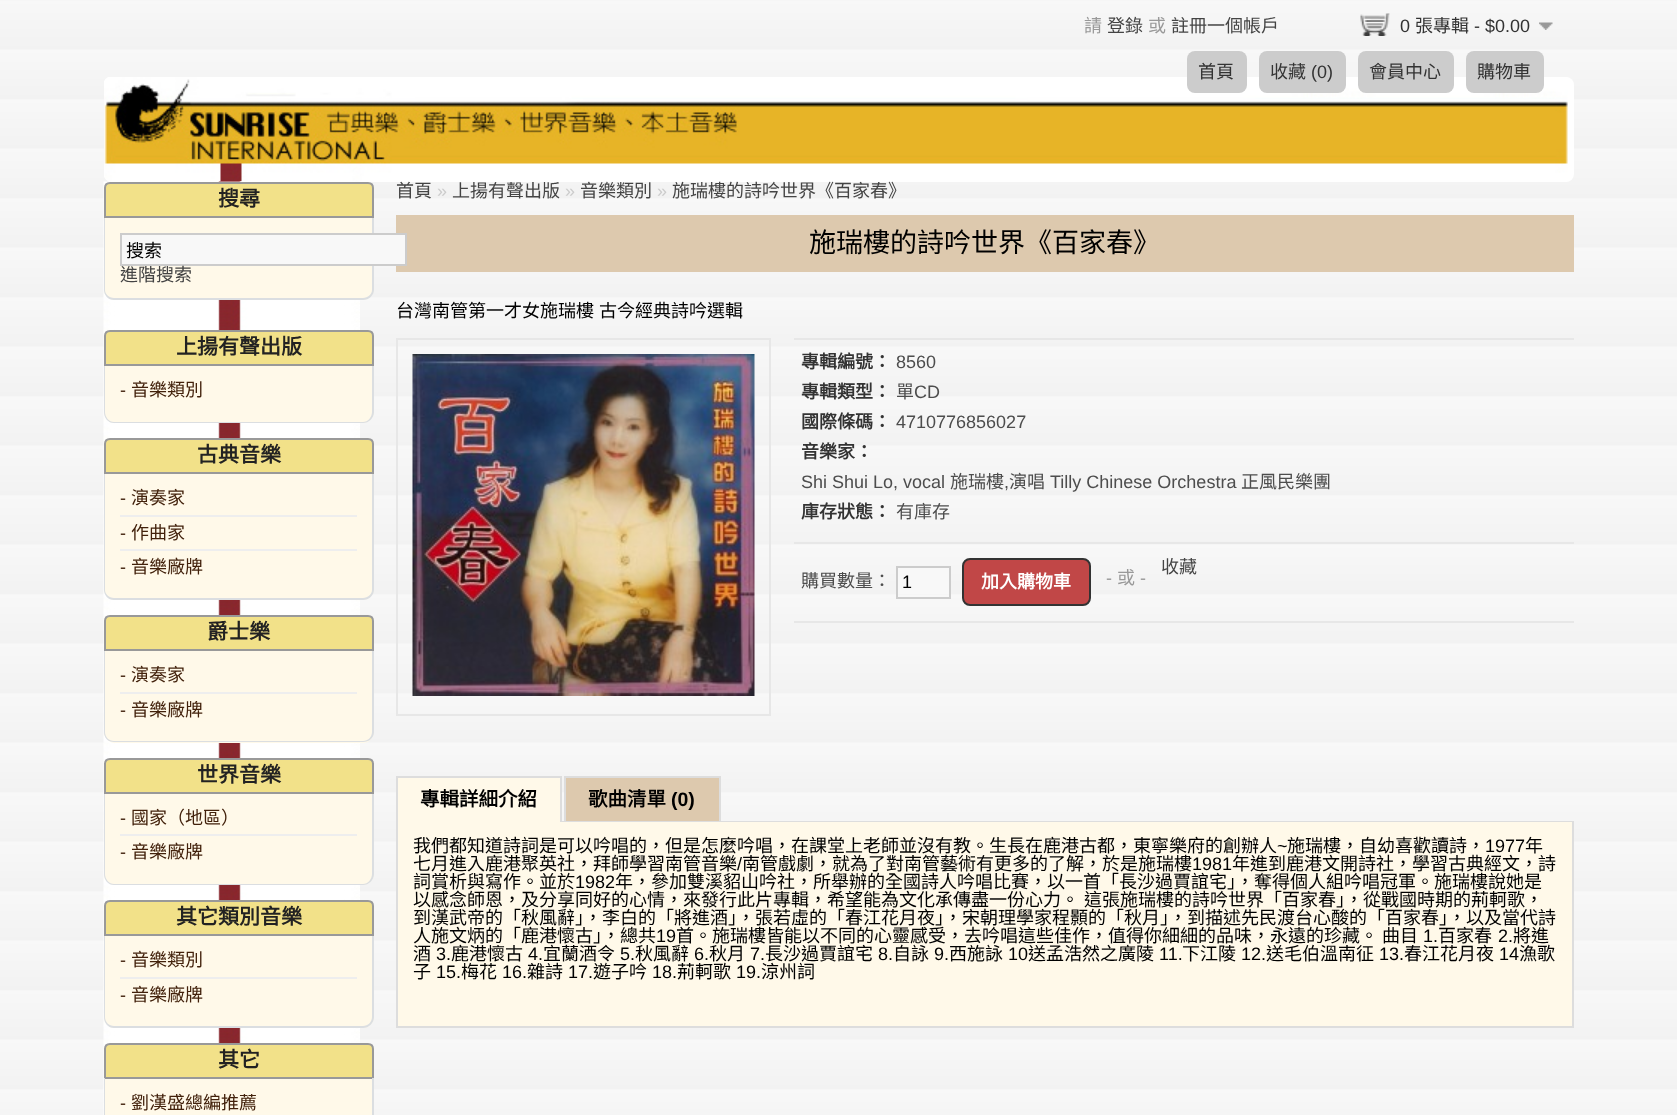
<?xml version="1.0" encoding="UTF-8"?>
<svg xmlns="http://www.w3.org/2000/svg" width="1677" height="1115">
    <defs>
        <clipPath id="clip1"><rect x="794" y="558" width="780" height="63"/></clipPath>
    </defs>
    <rect width="100%" height="100%" fill="#FFFFFF"/>
    <image x="0" y="0" width="1677" height="1115" href="img_01.png"/>
    <text x="1084" y="32" font-family="Noto Sans CJK HK" font-size="18" fill="#999999">請</text>
    <text x="1107" y="32" font-family="Noto Sans CJK HK" font-size="18" fill="#444444">登錄</text>
    <text x="1148" y="32" font-family="Noto Sans CJK HK" font-size="18" fill="#999999">或</text>
    <text x="1171" y="32" font-family="Noto Sans CJK HK" font-size="18" fill="#444444">註冊一個帳戶</text>
    <image x="1360" y="13" width="30" height="23" href="img_02.png"/>
    <text x="1400" y="32" font-family="Liberation Sans" font-size="18" fill="#333333">0</text>
    <text x="1415" y="32" font-family="Noto Sans CJK HK" font-size="18" fill="#333333">張專輯</text>
    <text x="1474" y="32" font-family="Liberation Sans" font-size="18" fill="#333333">- $0.00</text>
    <image x="1539" y="22" width="14" height="8" href="img_03.png"/>
    <rect x="104" y="77" width="1470" height="105" rx="8" fill="#FFFFFF"/>
    <image x="104" y="77" width="1464" height="105" href="img_04.png"/>
    <rect x="1187" y="51" width="60" height="42" rx="8" fill="#CCCCCC"/>
    <text x="1198" y="78" font-family="Noto Sans CJK HK" font-size="18" fill="#333333">首頁</text>
    <rect x="1259" y="51" width="87" height="42" rx="8" fill="#CCCCCC"/>
    <text x="1270" y="78" font-family="Noto Sans CJK HK" font-size="18" fill="#333333">收藏</text>
    <text x="1311" y="78" font-family="Liberation Sans" font-size="18" fill="#333333">(0)</text>
    <rect x="1358" y="51" width="96" height="42" rx="8" fill="#CCCCCC"/>
    <text x="1369" y="78" font-family="Noto Sans CJK HK" font-size="18" fill="#333333">會員中心</text>
    <rect x="1466" y="51" width="78" height="42" rx="8" fill="#CCCCCC"/>
    <text x="1477" y="78" font-family="Noto Sans CJK HK" font-size="18" fill="#333333">購物車</text>
    <image x="103" y="181" width="257" height="934" href="img_05.png"/>
    <path d="M 110 183 H 368 C 371 183 373 185 373 188 V 217 H 105 V 188 C 105 185 107 183 110 183 Z" fill="#F2E189" stroke="#999999" stroke-width="2"/>
    <text x="218" y="206" font-family="Noto Sans CJK HK" font-size="21" font-weight="700" fill="#222222">搜尋</text>
    <path d="M 104 218 H 374 V 289 C 374 295 369 300 363 300 H 115 C 109 300 104 295 104 289 Z" fill="#FFF9E9"/>
    <path d="M 104 218 H 374 V 290 C 374 295 369 300 363 300 H 114 C 108 300 104 295 104 290 Z M 105 218 H 372 V 290 C 372 294 368 298 363 298 H 114 C 109 298 105 294 105 290 Z" fill="#DBDEE1" fill-rule="evenodd"/>
    <rect x="396" y="215" width="1178" height="57" fill="#DDC9AE"/>
    <rect x="121" y="234" width="285" height="31" fill="#F8F8F8" stroke="#CCCCCC" stroke-width="2"/>
    <text x="126" y="257" font-family="Noto Sans CJK HK" font-size="18" fill="#000000">搜索</text>
    <text x="120" y="281" font-family="Noto Sans CJK HK" font-size="18" fill="#444444">進階搜索</text>
    <path d="M 110 331 H 368 C 371 331 373 333 373 336 V 365 H 105 V 336 C 105 333 107 331 110 331 Z" fill="#F2E189" stroke="#999999" stroke-width="2"/>
    <text x="176" y="354" font-family="Noto Sans CJK HK" font-size="21" font-weight="700" fill="#222222">上揚有聲出版</text>
    <path d="M 104 366 H 374 V 412 C 374 418 369 423 363 423 H 115 C 109 423 104 418 104 412 Z" fill="#FFF9E9"/>
    <path d="M 104 366 H 374 V 412 C 374 418 369 423 363 423 H 114 C 108 423 104 418 104 412 Z M 105 366 H 372 V 412 C 372 417 368 422 363 422 H 114 C 109 422 105 417 105 412 Z" fill="#DBDEE1" fill-rule="evenodd"/>
    <text x="120" y="396" font-family="Liberation Sans" font-size="18" fill="#42210B">-</text>
    <text x="131" y="396" font-family="Noto Sans CJK HK" font-size="18" fill="#42210B">音樂類別</text>
    <path d="M 110 439 H 368 C 371 439 373 441 373 444 V 473 H 105 V 444 C 105 441 107 439 110 439 Z" fill="#F2E189" stroke="#999999" stroke-width="2"/>
    <text x="197" y="462" font-family="Noto Sans CJK HK" font-size="21" font-weight="700" fill="#222222">古典音樂</text>
    <path d="M 104 474 H 374 V 589 C 374 595 369 600 363 600 H 115 C 109 600 104 595 104 589 Z" fill="#FFF9E9"/>
    <path d="M 104 474 H 374 V 590 C 374 595 369 600 363 600 H 114 C 108 600 104 595 104 590 Z M 105 474 H 372 V 590 C 372 594 368 598 363 598 H 114 C 109 598 105 594 105 590 Z" fill="#DBDEE1" fill-rule="evenodd"/>
    <text x="120" y="504" font-family="Liberation Sans" font-size="18" fill="#42210B">-</text>
    <text x="131" y="504" font-family="Noto Sans CJK HK" font-size="18" fill="#42210B">演奏家</text>
    <rect x="120" y="515" width="237" height="2" fill="#EEEEEE"/>
    <text x="120" y="539" font-family="Liberation Sans" font-size="18" fill="#42210B">-</text>
    <text x="131" y="539" font-family="Noto Sans CJK HK" font-size="18" fill="#42210B">作曲家</text>
    <rect x="120" y="549" width="237" height="2" fill="#EEEEEE"/>
    <text x="120" y="573" font-family="Liberation Sans" font-size="18" fill="#42210B">-</text>
    <text x="131" y="573" font-family="Noto Sans CJK HK" font-size="18" fill="#42210B">音樂廠牌</text>
    <path d="M 110 616 H 368 C 371 616 373 618 373 621 V 650 H 105 V 621 C 105 618 107 616 110 616 Z" fill="#F2E189" stroke="#999999" stroke-width="2"/>
    <text x="207" y="639" font-family="Noto Sans CJK HK" font-size="21" font-weight="700" fill="#222222">爵士樂</text>
    <path d="M 104 651 H 374 V 732 C 374 738 369 743 363 743 H 115 C 109 743 104 738 104 732 Z" fill="#FFF9E9"/>
    <path d="M 104 651 H 374 V 732 C 374 738 369 742 363 742 H 114 C 108 742 104 738 104 732 Z M 105 651 H 372 V 732 C 372 737 368 741 363 741 H 114 C 109 741 105 737 105 732 Z" fill="#DBDEE1" fill-rule="evenodd"/>
    <text x="120" y="681" font-family="Liberation Sans" font-size="18" fill="#42210B">-</text>
    <text x="131" y="681" font-family="Noto Sans CJK HK" font-size="18" fill="#42210B">演奏家</text>
    <rect x="120" y="692" width="237" height="2" fill="#EEEEEE"/>
    <text x="120" y="716" font-family="Liberation Sans" font-size="18" fill="#42210B">-</text>
    <text x="131" y="716" font-family="Noto Sans CJK HK" font-size="18" fill="#42210B">音樂廠牌</text>
    <path d="M 110 759 H 368 C 371 759 373 761 373 764 V 793 H 105 V 764 C 105 761 107 759 110 759 Z" fill="#F2E189" stroke="#999999" stroke-width="2"/>
    <text x="197" y="782" font-family="Noto Sans CJK HK" font-size="21" font-weight="700" fill="#222222">世界音樂</text>
    <path d="M 104 794 H 374 V 874 C 374 880 369 885 363 885 H 115 C 109 885 104 880 104 874 Z" fill="#FFF9E9"/>
    <path d="M 104 794 H 374 V 874 C 374 880 369 885 363 885 H 114 C 108 885 104 880 104 874 Z M 105 794 H 372 V 874 C 372 879 368 884 363 884 H 114 C 109 884 105 879 105 874 Z" fill="#DBDEE1" fill-rule="evenodd"/>
    <text x="120" y="824" font-family="Liberation Sans" font-size="18" fill="#42210B">-</text>
    <text x="131" y="824" font-family="Noto Sans CJK HK" font-size="18" fill="#42210B">國家（地區）</text>
    <rect x="120" y="834" width="237" height="2" fill="#EEEEEE"/>
    <text x="120" y="858" font-family="Liberation Sans" font-size="18" fill="#42210B">-</text>
    <text x="131" y="858" font-family="Noto Sans CJK HK" font-size="18" fill="#42210B">音樂廠牌</text>
    <path d="M 110 901 H 368 C 371 901 373 903 373 906 V 935 H 105 V 906 C 105 903 107 901 110 901 Z" fill="#F2E189" stroke="#999999" stroke-width="2"/>
    <text x="176" y="924" font-family="Noto Sans CJK HK" font-size="21" font-weight="700" fill="#222222">其它類別音樂</text>
    <path d="M 104 936 H 374 V 1017 C 374 1023 369 1028 363 1028 H 115 C 109 1028 104 1023 104 1017 Z" fill="#FFF9E9"/>
    <path d="M 104 936 H 374 V 1017 C 374 1023 369 1028 363 1028 H 114 C 108 1028 104 1023 104 1017 Z M 105 936 H 372 V 1017 C 372 1022 368 1026 363 1026 H 114 C 109 1026 105 1022 105 1017 Z" fill="#DBDEE1" fill-rule="evenodd"/>
    <text x="120" y="966" font-family="Liberation Sans" font-size="18" fill="#42210B">-</text>
    <text x="131" y="966" font-family="Noto Sans CJK HK" font-size="18" fill="#42210B">音樂類別</text>
    <rect x="120" y="977" width="237" height="2" fill="#EEEEEE"/>
    <text x="120" y="1001" font-family="Liberation Sans" font-size="18" fill="#42210B">-</text>
    <text x="131" y="1001" font-family="Noto Sans CJK HK" font-size="18" fill="#42210B">音樂廠牌</text>
    <path d="M 110 1044 H 368 C 371 1044 373 1046 373 1049 V 1078 H 105 V 1049 C 105 1046 107 1044 110 1044 Z" fill="#F2E189" stroke="#999999" stroke-width="2"/>
    <text x="218" y="1067" font-family="Noto Sans CJK HK" font-size="21" font-weight="700" fill="#222222">其它</text>
    <rect x="105" y="1079" width="267" height="36" fill="#FFF9E9"/>
    <path d="M 104 1078 H 374 V 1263 C 374 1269 369 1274 363 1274 H 114 C 108 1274 104 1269 104 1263 Z M 105 1078 H 372 V 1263 C 372 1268 368 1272 363 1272 H 114 C 109 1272 105 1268 105 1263 Z" fill="#DBDEE1" fill-rule="evenodd"/>
    <text x="120" y="1109" font-family="Liberation Sans" font-size="18" fill="#42210B">-</text>
    <text x="131" y="1109" font-family="Noto Sans CJK HK" font-size="18" fill="#42210B">劉漢盛總編推薦</text>
    <text x="396" y="197" font-family="Noto Sans CJK HK" font-size="18" fill="#444444">首頁</text>
    <text x="437" y="197" font-family="Liberation Sans" font-size="18" fill="#CCCCCC">»</text>
    <text x="452" y="197" font-family="Noto Sans CJK HK" font-size="18" fill="#444444">上揚有聲出版</text>
    <text x="565" y="197" font-family="Liberation Sans" font-size="18" fill="#CCCCCC">»</text>
    <text x="580" y="197" font-family="Noto Sans CJK HK" font-size="18" fill="#444444">音樂類別</text>
    <text x="657" y="197" font-family="Liberation Sans" font-size="18" fill="#CCCCCC">»</text>
    <text x="672" y="197" font-family="Noto Sans CJK HK" font-size="18" fill="#444444">施瑞樓的詩吟世界《百家春》</text>
    <text x="809" y="252" font-family="Noto Sans CJK HK" font-size="27" fill="#000000">施瑞樓的詩吟世界《百家春》</text>
    <text x="396" y="317" font-family="Noto Sans CJK HK" font-size="18" fill="#000000">台灣南管第一才女施瑞樓</text>
    <text x="599" y="317" font-family="Noto Sans CJK HK" font-size="18" fill="#000000">古今經典詩吟選輯</text>
    <rect x="397" y="339" width="373" height="376" fill="none" stroke="#E7E7E7" stroke-width="2"/>
    <image x="412" y="354" width="343" height="342" href="img_06.png"/>
    <rect x="794" y="338" width="780" height="2" fill="#E7E7E7"/>
    <rect x="794" y="542" width="780" height="2" fill="#E7E7E7"/>
    <text x="801" y="368" font-family="Noto Sans CJK HK" font-size="18" font-weight="700" fill="#333333">專輯編號：</text>
    <text x="896" y="368" font-family="Liberation Sans" font-size="18" fill="#4D4D4D">8560</text>
    <text x="801" y="398" font-family="Noto Sans CJK HK" font-size="18" font-weight="700" fill="#333333">專輯類型：</text>
    <text x="896" y="398" font-family="Noto Sans CJK HK" font-size="18" fill="#4D4D4D">單</text>
    <text x="914" y="398" font-family="Liberation Sans" font-size="18" fill="#4D4D4D">CD</text>
    <text x="801" y="428" font-family="Noto Sans CJK HK" font-size="18" font-weight="700" fill="#333333">國際條碼：</text>
    <text x="896" y="428" font-family="Liberation Sans" font-size="18" fill="#4D4D4D">4710776856027</text>
    <text x="801" y="458" font-family="Noto Sans CJK HK" font-size="18" font-weight="700" fill="#333333">音樂家：</text>
    <text x="801" y="488" font-family="Liberation Sans" font-size="18" fill="#4D4D4D">Shi Shui Lo, vocal</text>
    <text x="950" y="488" font-family="Noto Sans CJK HK" font-size="18" fill="#4D4D4D">施瑞樓</text>
    <text x="1004" y="488" font-family="Liberation Sans" font-size="18" fill="#4D4D4D">,</text>
    <text x="1009" y="488" font-family="Noto Sans CJK HK" font-size="18" fill="#4D4D4D">演唱</text>
    <text x="1050" y="488" font-family="Liberation Sans" font-size="18" fill="#4D4D4D">Tilly Chinese Orchestra</text>
    <text x="1241" y="488" font-family="Noto Sans CJK HK" font-size="18" fill="#4D4D4D">正風民樂團</text>
    <text x="801" y="518" font-family="Noto Sans CJK HK" font-size="18" font-weight="700" fill="#333333">庫存狀態：</text>
    <text x="896" y="518" font-family="Noto Sans CJK HK" font-size="18" fill="#4D4D4D">有庫存</text>
    <rect x="794" y="621" width="780" height="2" fill="#E7E7E7"/>
    <text x="801" y="587" font-family="Noto Sans CJK HK" font-size="18" fill="#4D4D4D">購買數量：</text>
    <rect x="898" y="568" width="51" height="26" fill="#F8F8F8"/>
    <rect x="897" y="567" width="53" height="31" fill="none" stroke="#CCCCCC" stroke-width="2"/>
    <text x="902" y="588" font-family="Liberation Sans" font-size="18" fill="#000000">1</text>
    <rect x="963" y="559" width="127" height="46" rx="7" fill="#C14747" stroke="#333333" stroke-width="2"/>
    <text x="981" y="588" font-family="Noto Sans CJK HK" font-size="18" font-weight="700" fill="#FFFFFF">加入購物車</text>
    <text x="1106" y="584" font-family="Liberation Sans" font-size="18" fill="#999999">-</text>
    <text x="1117" y="584" font-family="Noto Sans CJK HK" font-size="18" fill="#999999">或</text>
    <text x="1140" y="584" font-family="Liberation Sans" font-size="18" fill="#999999">-</text>
    <g clip-path="url(#clip1)">
        <text x="1161" y="573" font-family="Noto Sans CJK HK" font-size="18" fill="#444444">收藏</text>
    </g>
    <rect x="562" y="821" width="1012" height="1" fill="#DDDDDD"/>
    <rect x="398" y="778" width="162" height="44" fill="#FFF9E9"/>
    <rect x="396" y="776" width="165" height="2" fill="#DDDDDD"/>
    <rect x="560" y="776" width="2" height="46" fill="#DDDDDD"/>
    <rect x="396" y="776" width="2" height="46" fill="#DDDDDD"/>
    <text x="420" y="806" font-family="Noto Sans CJK HK" font-size="19.5" font-weight="700" fill="#000000">專輯詳細介紹</text>
    <rect x="566" y="778" width="153" height="43" fill="#DDC9AE"/>
    <rect x="564" y="776" width="156" height="2" fill="#DDDDDD"/>
    <rect x="719" y="776" width="2" height="45" fill="#DDDDDD"/>
    <rect x="564" y="776" width="2" height="45" fill="#DDDDDD"/>
    <text x="588" y="806" font-family="Noto Sans CJK HK" font-size="19.5" font-weight="700" fill="#000000">歌曲清單</text>
    <text x="671" y="806" font-family="Liberation Sans" font-size="19.5" font-weight="700" fill="#000000">(0)</text>
    <rect x="398" y="822" width="1174" height="204" fill="#FFF9E9"/>
    <rect x="1572" y="822" width="2" height="206" fill="#DDDDDD"/>
    <rect x="396" y="1026" width="1178" height="2" fill="#DDDDDD"/>
    <rect x="396" y="822" width="2" height="206" fill="#DDDDDD"/>
    <text x="413" y="852" font-family="Noto Sans CJK HK" font-size="18" fill="#000000">我們都知道詩詞是可以吟唱的，但是怎麼吟唱，在課堂上老師並沒有教。生長在鹿港古都，東寧樂府的創辦人</text>
    <text x="1277" y="852" font-family="Liberation Sans" font-size="18" fill="#000000">~</text>
    <text x="1287" y="852" font-family="Noto Sans CJK HK" font-size="18" fill="#000000">施瑞樓，自幼喜歡讀詩，</text>
    <text x="1485" y="852" font-family="Liberation Sans" font-size="18" fill="#000000">1977</text>
    <text x="1525" y="852" font-family="Noto Sans CJK HK" font-size="18" fill="#000000">年</text>
    <text x="413" y="870" font-family="Noto Sans CJK HK" font-size="18" fill="#000000">七月進入鹿港聚英社，拜師學習南管音樂</text>
    <text x="737" y="870" font-family="Liberation Sans" font-size="18" fill="#000000">/</text>
    <text x="742" y="870" font-family="Noto Sans CJK HK" font-size="18" fill="#000000">南管戲劇，就為了對南管藝術有更多的了解，於是施瑞樓</text>
    <text x="1192" y="870" font-family="Liberation Sans" font-size="18" fill="#000000">1981</text>
    <text x="1232" y="870" font-family="Noto Sans CJK HK" font-size="18" fill="#000000">年進到鹿港文開詩社，學習古典經文，詩</text>
    <text x="413" y="888" font-family="Noto Sans CJK HK" font-size="18" fill="#000000">詞賞析與寫作。並於</text>
    <text x="575" y="888" font-family="Liberation Sans" font-size="18" fill="#000000">1982</text>
    <text x="615" y="888" font-family="Noto Sans CJK HK" font-size="18" fill="#000000">年，參加雙溪貂山吟社，所舉辦的全國詩人吟唱比賽，以一首「長沙過賈誼宅」，奪得個人組吟唱冠軍。施瑞樓說她是</text>
    <text font-family="Noto Sans CJK HK" font-size="18" fill="#000000">
        <tspan x="413" y="906" word-spacing="1">以感念師恩，及分享同好的心情，來發行此片專輯，希望能為文化承傳盡一份心力。 這張施瑞樓的詩吟世界「百家春」，從戰國時期的荊軻歌，</tspan>
        <tspan x="413" y="924">到漢武帝的「秋風辭」，李白的「將進酒」，張若虛的「春江花月夜」，宋朝理學家程顥的「秋月」，到描述先民渡台心酸的「百家春」，以及當代詩</tspan>
        <tspan x="413" y="942">人施文炳的「鹿港懷古」，總共</tspan>
    </text>
    <text x="656" y="942" font-family="Liberation Sans" font-size="18" fill="#000000">19</text>
    <text x="676" y="942" font-family="Noto Sans CJK HK" font-size="18" fill="#000000">首。施瑞樓皆能以不同的心靈感受，去吟唱這些佳作，值得你細細的品味，永遠的珍藏。 曲目</text>
    <text x="1423" y="942" font-family="Liberation Sans" font-size="18" fill="#000000">1.</text>
    <text x="1438" y="942" font-family="Noto Sans CJK HK" font-size="18" fill="#000000">百家春</text>
    <text x="1498" y="942" font-family="Liberation Sans" font-size="18" fill="#000000">2.</text>
    <text x="1513" y="942" font-family="Noto Sans CJK HK" font-size="18" fill="#000000">將進</text>
    <text x="413" y="960" font-family="Noto Sans CJK HK" font-size="18" fill="#000000">酒</text>
    <text x="436" y="960" font-family="Liberation Sans" font-size="18" fill="#000000">3.</text>
    <text x="451" y="960" font-family="Noto Sans CJK HK" font-size="18" fill="#000000">鹿港懷古</text>
    <text x="528" y="960" font-family="Liberation Sans" font-size="18" fill="#000000">4.</text>
    <text x="543" y="960" font-family="Noto Sans CJK HK" font-size="18" fill="#000000">宜蘭酒令</text>
    <text x="620" y="960" font-family="Liberation Sans" font-size="18" fill="#000000">5.</text>
    <text x="635" y="960" font-family="Noto Sans CJK HK" font-size="18" fill="#000000">秋風辭</text>
    <text x="694" y="960" font-family="Liberation Sans" font-size="18" fill="#000000">6.</text>
    <text x="709" y="960" font-family="Noto Sans CJK HK" font-size="18" fill="#000000">秋月</text>
    <text x="750" y="960" font-family="Liberation Sans" font-size="18" fill="#000000">7.</text>
    <text x="765" y="960" font-family="Noto Sans CJK HK" font-size="18" fill="#000000">長沙過賈誼宅</text>
    <text x="878" y="960" font-family="Liberation Sans" font-size="18" fill="#000000">8.</text>
    <text x="893" y="960" font-family="Noto Sans CJK HK" font-size="18" fill="#000000">自詠</text>
    <text x="934" y="960" font-family="Liberation Sans" font-size="18" fill="#000000">9.</text>
    <text x="949" y="960" font-family="Noto Sans CJK HK" font-size="18" fill="#000000">西施詠</text>
    <text x="1008" y="960" font-family="Liberation Sans" font-size="18" fill="#000000">10</text>
    <text x="1028" y="960" font-family="Noto Sans CJK HK" font-size="18" fill="#000000">送孟浩然之廣陵</text>
    <text x="1159" y="960" font-family="Liberation Sans" font-size="18" fill="#000000">11.</text>
    <text x="1182" y="960" font-family="Noto Sans CJK HK" font-size="18" fill="#000000">下江陵</text>
    <text x="1241" y="960" font-family="Liberation Sans" font-size="18" fill="#000000">12.</text>
    <text x="1266" y="960" font-family="Noto Sans CJK HK" font-size="18" fill="#000000">送毛伯溫南征</text>
    <text x="1379" y="960" font-family="Liberation Sans" font-size="18" fill="#000000">13.</text>
    <text x="1404" y="960" font-family="Noto Sans CJK HK" font-size="18" fill="#000000">春江花月夜</text>
    <text x="1499" y="960" font-family="Liberation Sans" font-size="18" fill="#000000">14</text>
    <text x="1519" y="960" font-family="Noto Sans CJK HK" font-size="18" fill="#000000">漁歌</text>
    <text x="413" y="978" font-family="Noto Sans CJK HK" font-size="18" fill="#000000">子</text>
    <text x="436" y="978" font-family="Liberation Sans" font-size="18" fill="#000000">15.</text>
    <text x="461" y="978" font-family="Noto Sans CJK HK" font-size="18" fill="#000000">梅花</text>
    <text x="502" y="978" font-family="Liberation Sans" font-size="18" fill="#000000">16.</text>
    <text x="527" y="978" font-family="Noto Sans CJK HK" font-size="18" fill="#000000">雜詩</text>
    <text x="568" y="978" font-family="Liberation Sans" font-size="18" fill="#000000">17.</text>
    <text x="593" y="978" font-family="Noto Sans CJK HK" font-size="18" fill="#000000">遊子吟</text>
    <text x="652" y="978" font-family="Liberation Sans" font-size="18" fill="#000000">18.</text>
    <text x="677" y="978" font-family="Noto Sans CJK HK" font-size="18" fill="#000000">荊軻歌</text>
    <text x="736" y="978" font-family="Liberation Sans" font-size="18" fill="#000000">19.</text>
    <text x="761" y="978" font-family="Noto Sans CJK HK" font-size="18" fill="#000000">涼州詞</text>
</svg>
